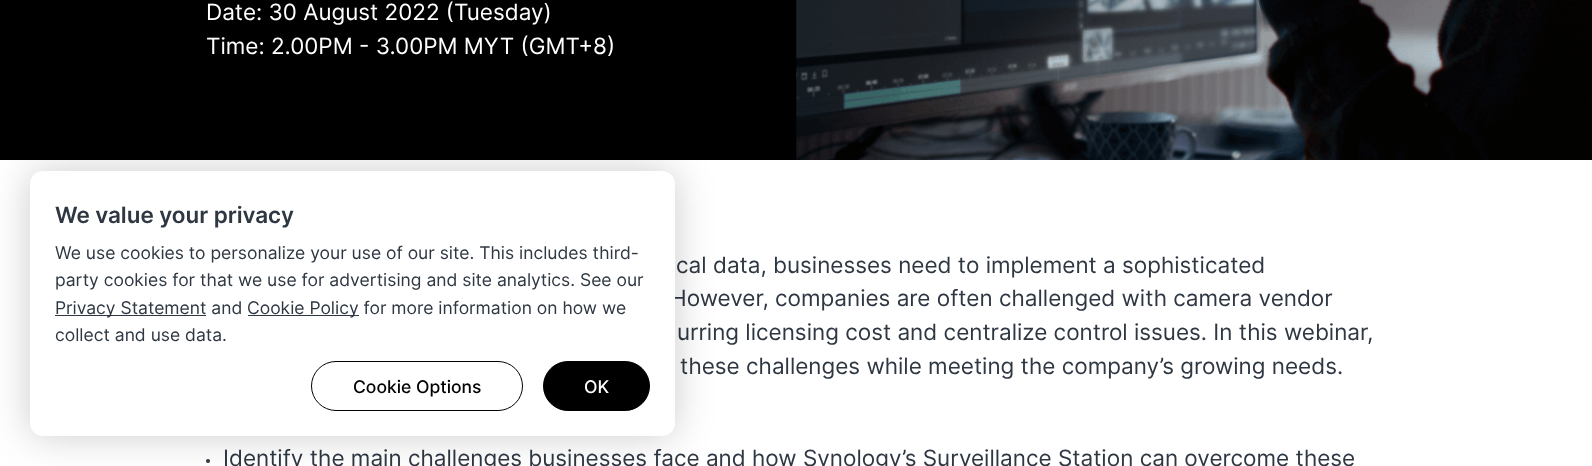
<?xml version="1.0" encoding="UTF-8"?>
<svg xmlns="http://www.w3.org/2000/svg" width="1592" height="466">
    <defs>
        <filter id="blur1" x="-50%" y="-200%" width="200%" height="500%"><feGaussianBlur stdDeviation="19"/></filter>
    </defs>
    <rect width="100%" height="100%" fill="#FFFFFF"/>
    <rect x="0" y="0" width="797" height="160" fill="#000000"/>
    <text font-family="Inter" font-size="22.5" fill="#FFFFFF">
        <tspan x="206" y="20">Date: 30 August 2022 (Tuesday)</tspan>
        <tspan x="206" y="54">Time: 2.00PM - 3.00PM MYT (GMT+8)</tspan>
    </text>
    <image x="796" y="0" width="796" height="160" href="img_01.png"/>
    <text x="676" y="273" font-family="Inter" font-size="22.5" fill="#2E3742">cal data, businesses need to implement a sophisticated</text>
    <text x="670" y="306" font-family="Inter" font-size="22.5" fill="#2E3742">However, companies are often challenged with camera vendor</text>
    <text x="677" y="340" font-family="Inter" font-size="22.5" fill="#2E3742">urring licensing cost and centralize control issues. In this webinar,</text>
    <text x="680" y="374" font-family="Inter" font-size="22.5" fill="#2E3742">these challenges while meeting the company’s growing needs.</text>
    <circle cx="208" cy="461" r="2" fill="#2E3742"/>
    <text x="223" y="466" font-family="Inter" font-size="22.5" fill="#2E3742">Identify the main challenges businesses face and how Synology’s Surveillance Station can overcome these</text>
    <rect x="30" y="171" width="645" height="265" rx="13" fill="#000000" fill-opacity="0.2" filter="url(#blur1)"/>
    <rect x="30" y="171" width="645" height="265" rx="13" fill="#FFFFFF"/>
    <text x="55" y="223" font-family="Inter" font-size="22.5" font-weight="600" fill="#2E3742">We value your privacy</text>
    <text font-family="Inter" font-size="17.5" fill="#2E3742">
        <tspan x="55" y="259">We use cookies to personalize your use of our site. This includes third-</tspan>
        <tspan x="55" y="286">party cookies for that we use for advertising and site analytics. See our</tspan>
    </text>
    <rect x="55" y="315" width="151" height="1" fill="#2E3742"/>
    <text x="55" y="314" font-family="Inter" font-size="17.5" fill="#2E3742">Privacy Statement and</text>
    <rect x="248" y="315" width="111" height="1" fill="#2E3742"/>
    <text x="247" y="314" font-family="Inter" font-size="17.5" fill="#2E3742">Cookie Policy for more information on how we</text>
    <text x="55" y="341" font-family="Inter" font-size="17.5" fill="#2E3742">collect and use data.</text>
    <rect x="311.5" y="361.5" width="211" height="49" rx="24.5" fill="none" stroke="#000000"/>
    <text x="353" y="393" font-family="Inter" font-size="17.5" font-weight="500" fill="#000000">Cookie Options</text>
    <rect x="543.5" y="361.5" width="106" height="49" rx="24.5" fill="#000000" stroke="#000000"/>
    <text x="584" y="393" font-family="Inter" font-size="17.5" font-weight="500" fill="#FFFFFF">OK</text>
</svg>
